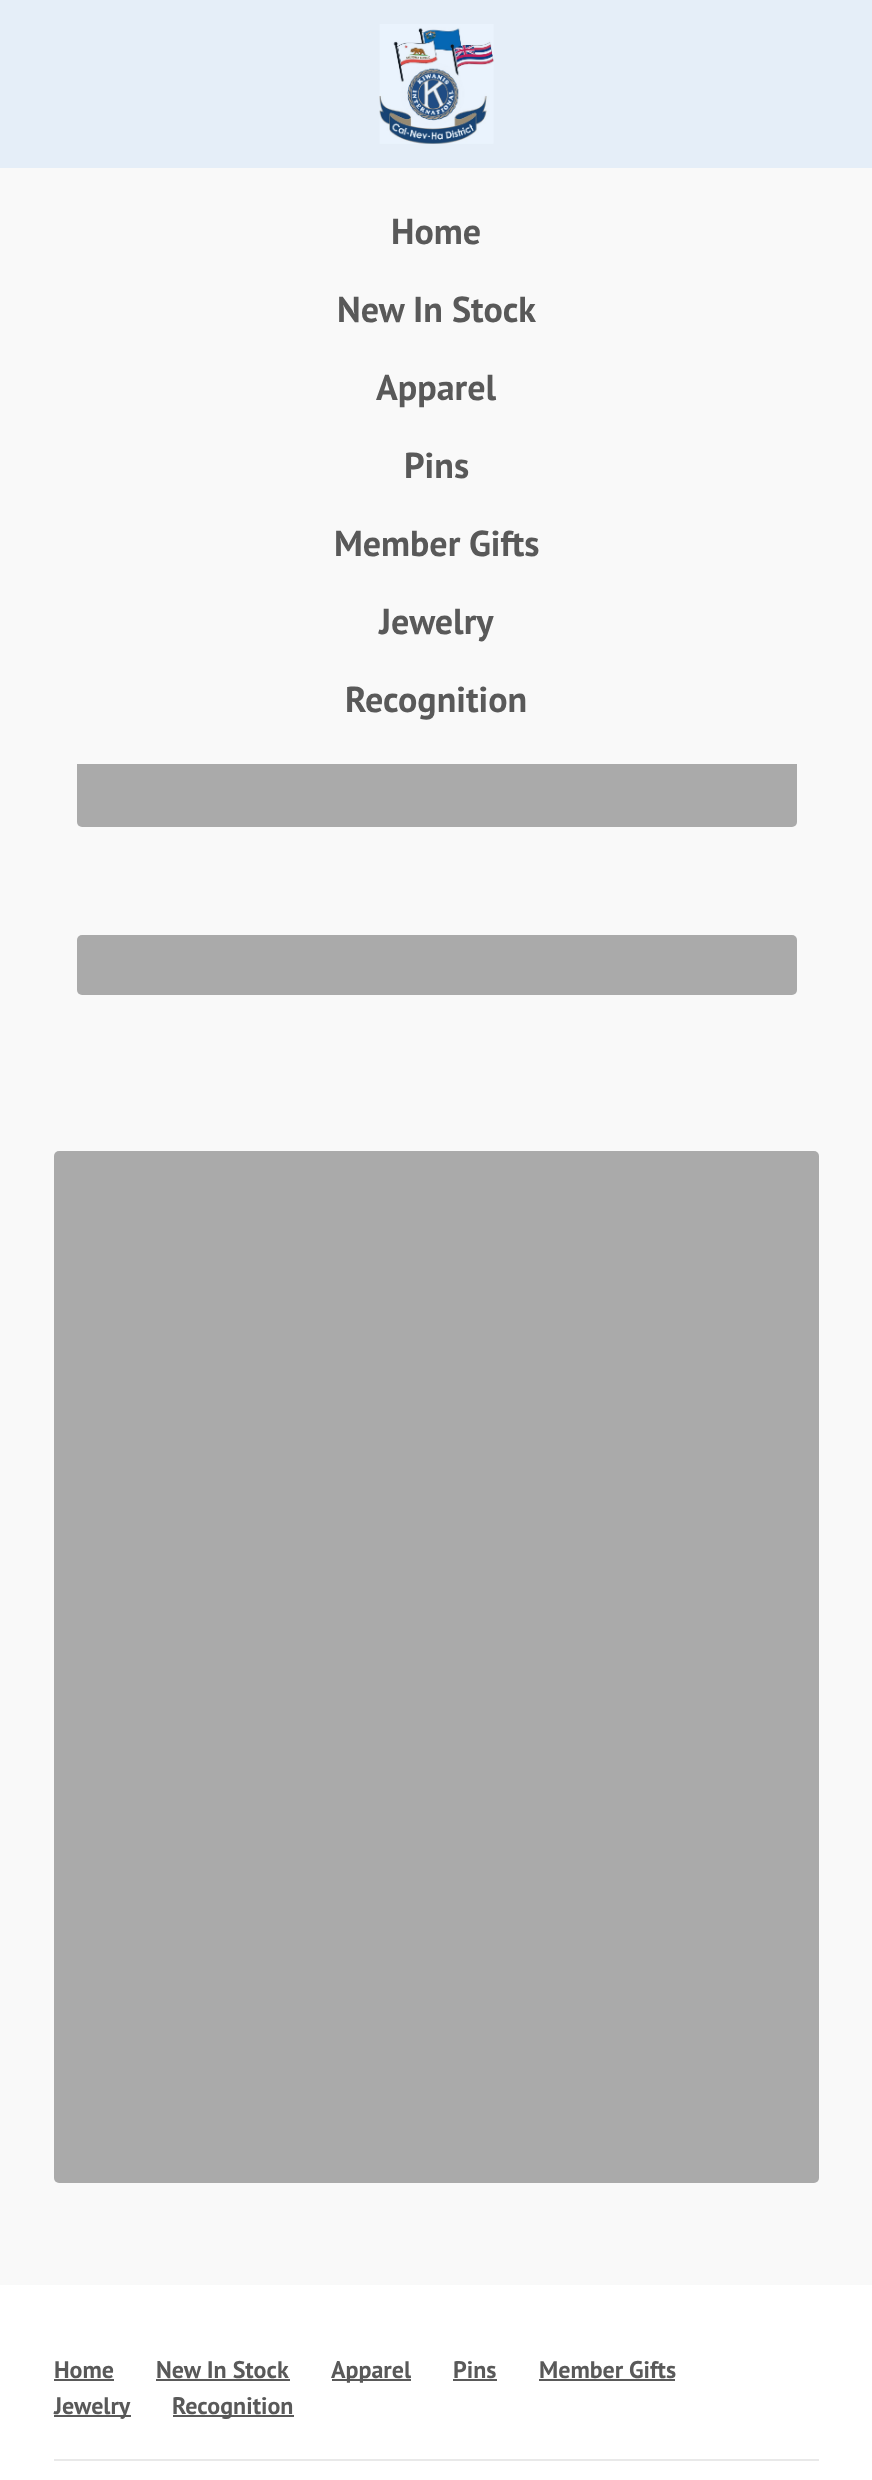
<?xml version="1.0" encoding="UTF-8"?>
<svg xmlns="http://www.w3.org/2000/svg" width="872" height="2480">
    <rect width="100%" height="100%" fill="#FFFFFF"/>
    <rect x="0" y="764" width="872" height="1521" fill="#F9F9F9"/>
    <rect x="77" y="527" width="720" height="300" rx="5" fill="#AAAAAA"/>
    <rect x="0" y="168" width="872" height="596" fill="#F9F9F9"/>
    <rect x="0" y="0" width="872" height="168" fill="#E5EEF8"/>
    <image x="379" y="24" width="115" height="120" href="img_01.png"/>
    <text x="391" y="244" font-family="PT Sans" font-size="36" font-weight="700" fill="#595959">Home</text>
    <text x="337" y="322" font-family="PT Sans" font-size="36" font-weight="700" fill="#595959">New In Stock</text>
    <text x="376" y="400" font-family="PT Sans" font-size="36" font-weight="700" fill="#595959">Apparel</text>
    <text x="404" y="478" font-family="PT Sans" font-size="36" font-weight="700" fill="#595959">Pins</text>
    <text x="334" y="556" font-family="PT Sans" font-size="36" font-weight="700" fill="#595959">Member Gifts</text>
    <text x="379" y="634" font-family="PT Sans" font-size="36" font-weight="700" fill="#595959">Jewelry</text>
    <text x="345" y="712" font-family="PT Sans" font-size="36" font-weight="700" fill="#595959">Recognition</text>
    <rect x="77" y="935" width="720" height="60" rx="5" fill="#AAAAAA"/>
    <rect x="54" y="1151" width="765" height="1032" rx="5" fill="#AAAAAA"/>
    <text x="54" y="2378" font-family="PT Sans" font-size="24" font-weight="700" fill="#595959">Home</text>
    <rect x="54" y="2379" width="60" height="2" fill="#595959"/>
    <text x="156" y="2378" font-family="PT Sans" font-size="24" font-weight="700" fill="#595959">New In Stock</text>
    <rect x="156" y="2379" width="134" height="2" fill="#595959"/>
    <rect x="332" y="2379" width="79" height="2" fill="#595959"/>
    <text x="331" y="2378" font-family="PT Sans" font-size="24" font-weight="700" fill="#595959">Apparel</text>
    <text x="453" y="2378" font-family="PT Sans" font-size="24" font-weight="700" fill="#595959">Pins</text>
    <rect x="453" y="2379" width="44" height="2" fill="#595959"/>
    <text x="539" y="2378" font-family="PT Sans" font-size="24" font-weight="700" fill="#595959">Member Gifts</text>
    <rect x="539" y="2379" width="136" height="2" fill="#595959"/>
    <rect x="54" y="2415" width="77" height="2" fill="#595959"/>
    <text x="54" y="2414" font-family="PT Sans" font-size="24" font-weight="700" fill="#595959">Jewelry</text>
    <rect x="173" y="2415" width="121" height="2" fill="#595959"/>
    <text x="172" y="2414" font-family="PT Sans" font-size="24" font-weight="700" fill="#595959">Recognition</text>
    <rect x="54" y="2459" width="765" height="2" fill="#E9E9E9"/>
</svg>
